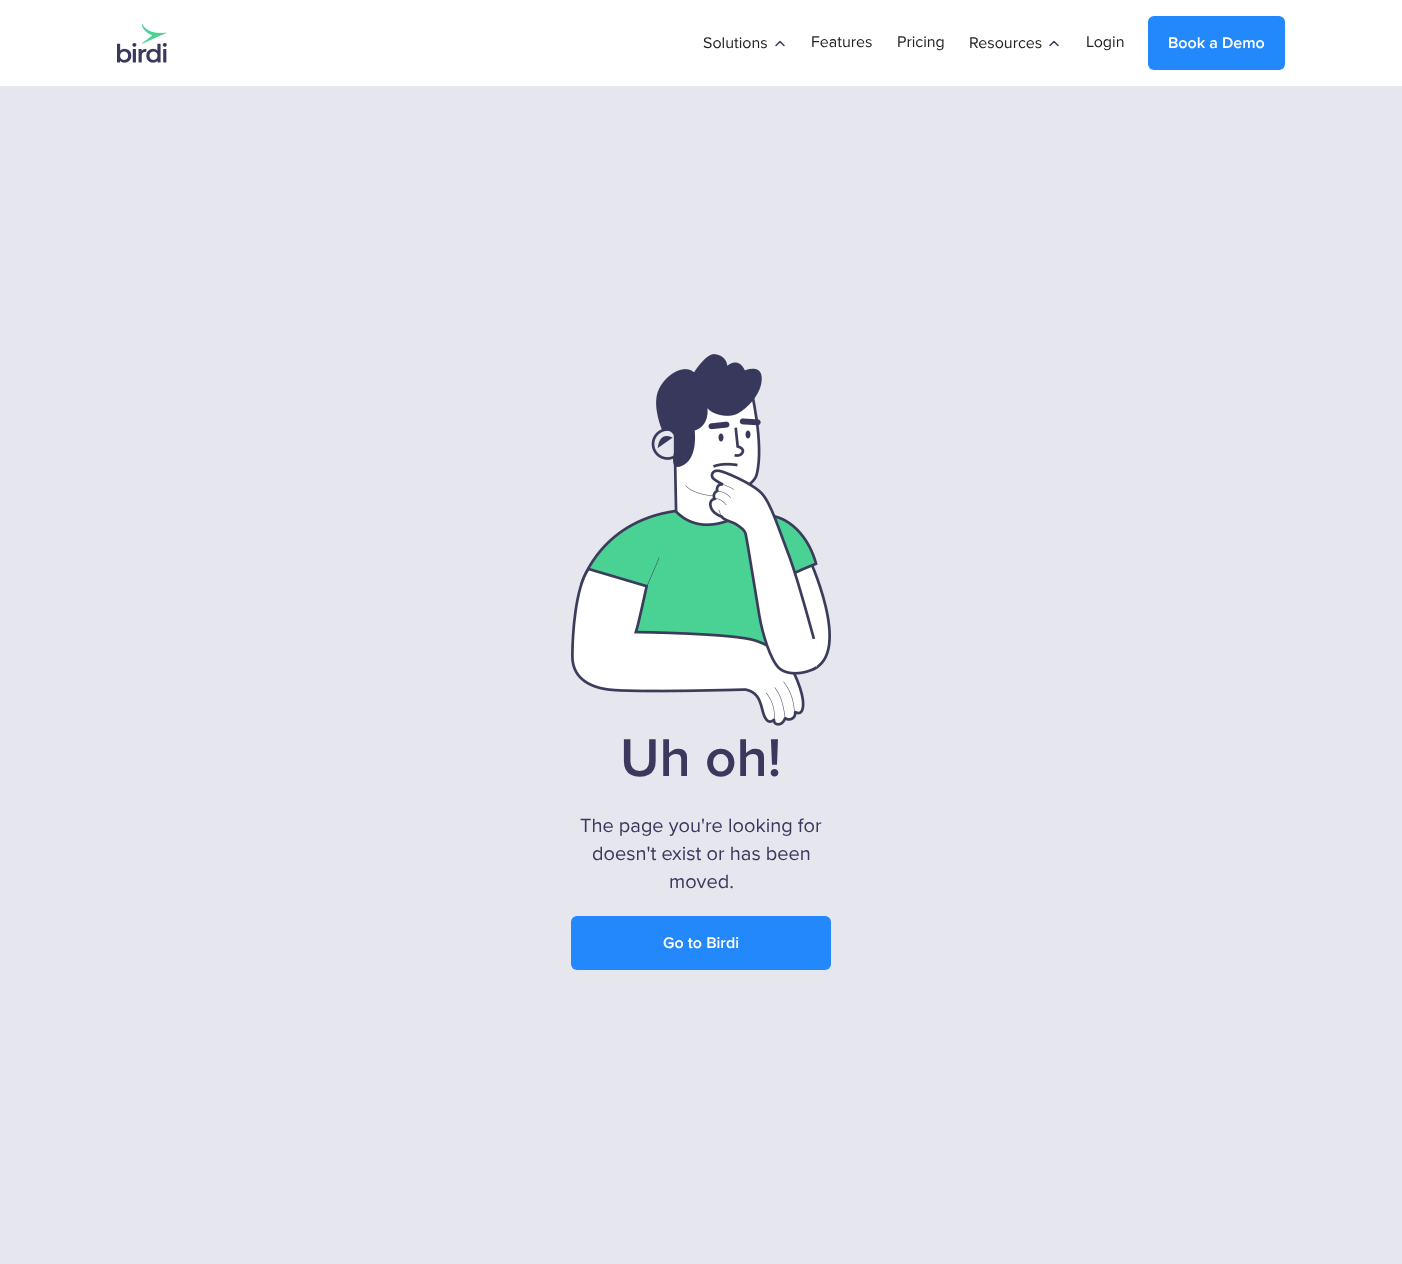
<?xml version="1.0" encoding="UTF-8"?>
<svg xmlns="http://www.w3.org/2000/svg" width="1402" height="1264">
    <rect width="100%" height="100%" fill="#E6E6EF"/>
    <rect x="0" y="0" width="1402" height="86" fill="#FFFFFF"/>
    <image x="117" y="24" width="50" height="39" href="img_01.png"/>
    <text x="703" y="48" font-family="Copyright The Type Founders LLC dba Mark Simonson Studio" font-size="16" fill="#222222">Solutions</text>
    <path d="M 784 45.5 L 780 41.5 L 776 45.5" fill="none" stroke="#3A385C" stroke-width="1.5" stroke-linecap="round" stroke-linejoin="round"/>
    <text x="811" y="47" font-family="Copyright The Type Founders LLC dba Mark Simonson Studio" font-size="16" fill="#222222">Features</text>
    <text x="897" y="47" font-family="Copyright The Type Founders LLC dba Mark Simonson Studio" font-size="16" fill="#222222">Pricing</text>
    <text x="969" y="48" font-family="Copyright The Type Founders LLC dba Mark Simonson Studio" font-size="16" fill="#222222">Resources</text>
    <path d="M 1058 45.5 L 1054 41.5 L 1050 45.5" fill="none" stroke="#3A385C" stroke-width="1.5" stroke-linecap="round" stroke-linejoin="round"/>
    <text x="1086" y="47" font-family="Copyright The Type Founders LLC dba Mark Simonson Studio" font-size="16" fill="#222222">Login</text>
    <rect x="1148" y="16" width="137" height="54" rx="6" fill="#2388FB"/>
    <text x="1168" y="48" font-family="Copyright The Type Founders LLC dba Mark Simonson Studio" font-size="16" font-weight="600" fill="#FFFFFF">Book a Demo</text>
    <image x="571" y="354" width="260" height="372" href="img_02.png"/>
    <text x="620" y="776" font-family="Copyright The Type Founders LLC dba Mark Simonson Studio" font-size="55" font-weight="600" fill="#3A385C">Uh oh!</text>
    <text x="580" y="832" font-family="Copyright The Type Founders LLC dba Mark Simonson Studio" font-size="20" fill="#3A385C">The page you're looking for</text>
    <text x="592" y="860" font-family="Copyright The Type Founders LLC dba Mark Simonson Studio" font-size="20" fill="#3A385C">doesn't exist or has been</text>
    <text x="669" y="888" font-family="Copyright The Type Founders LLC dba Mark Simonson Studio" font-size="20" fill="#3A385C">moved.</text>
    <rect x="571" y="916" width="260" height="54" rx="6" fill="#2388FB"/>
    <text x="663" y="948" font-family="Copyright The Type Founders LLC dba Mark Simonson Studio" font-size="16" font-weight="600" fill="#FFFFFF">Go to Birdi</text>
</svg>
